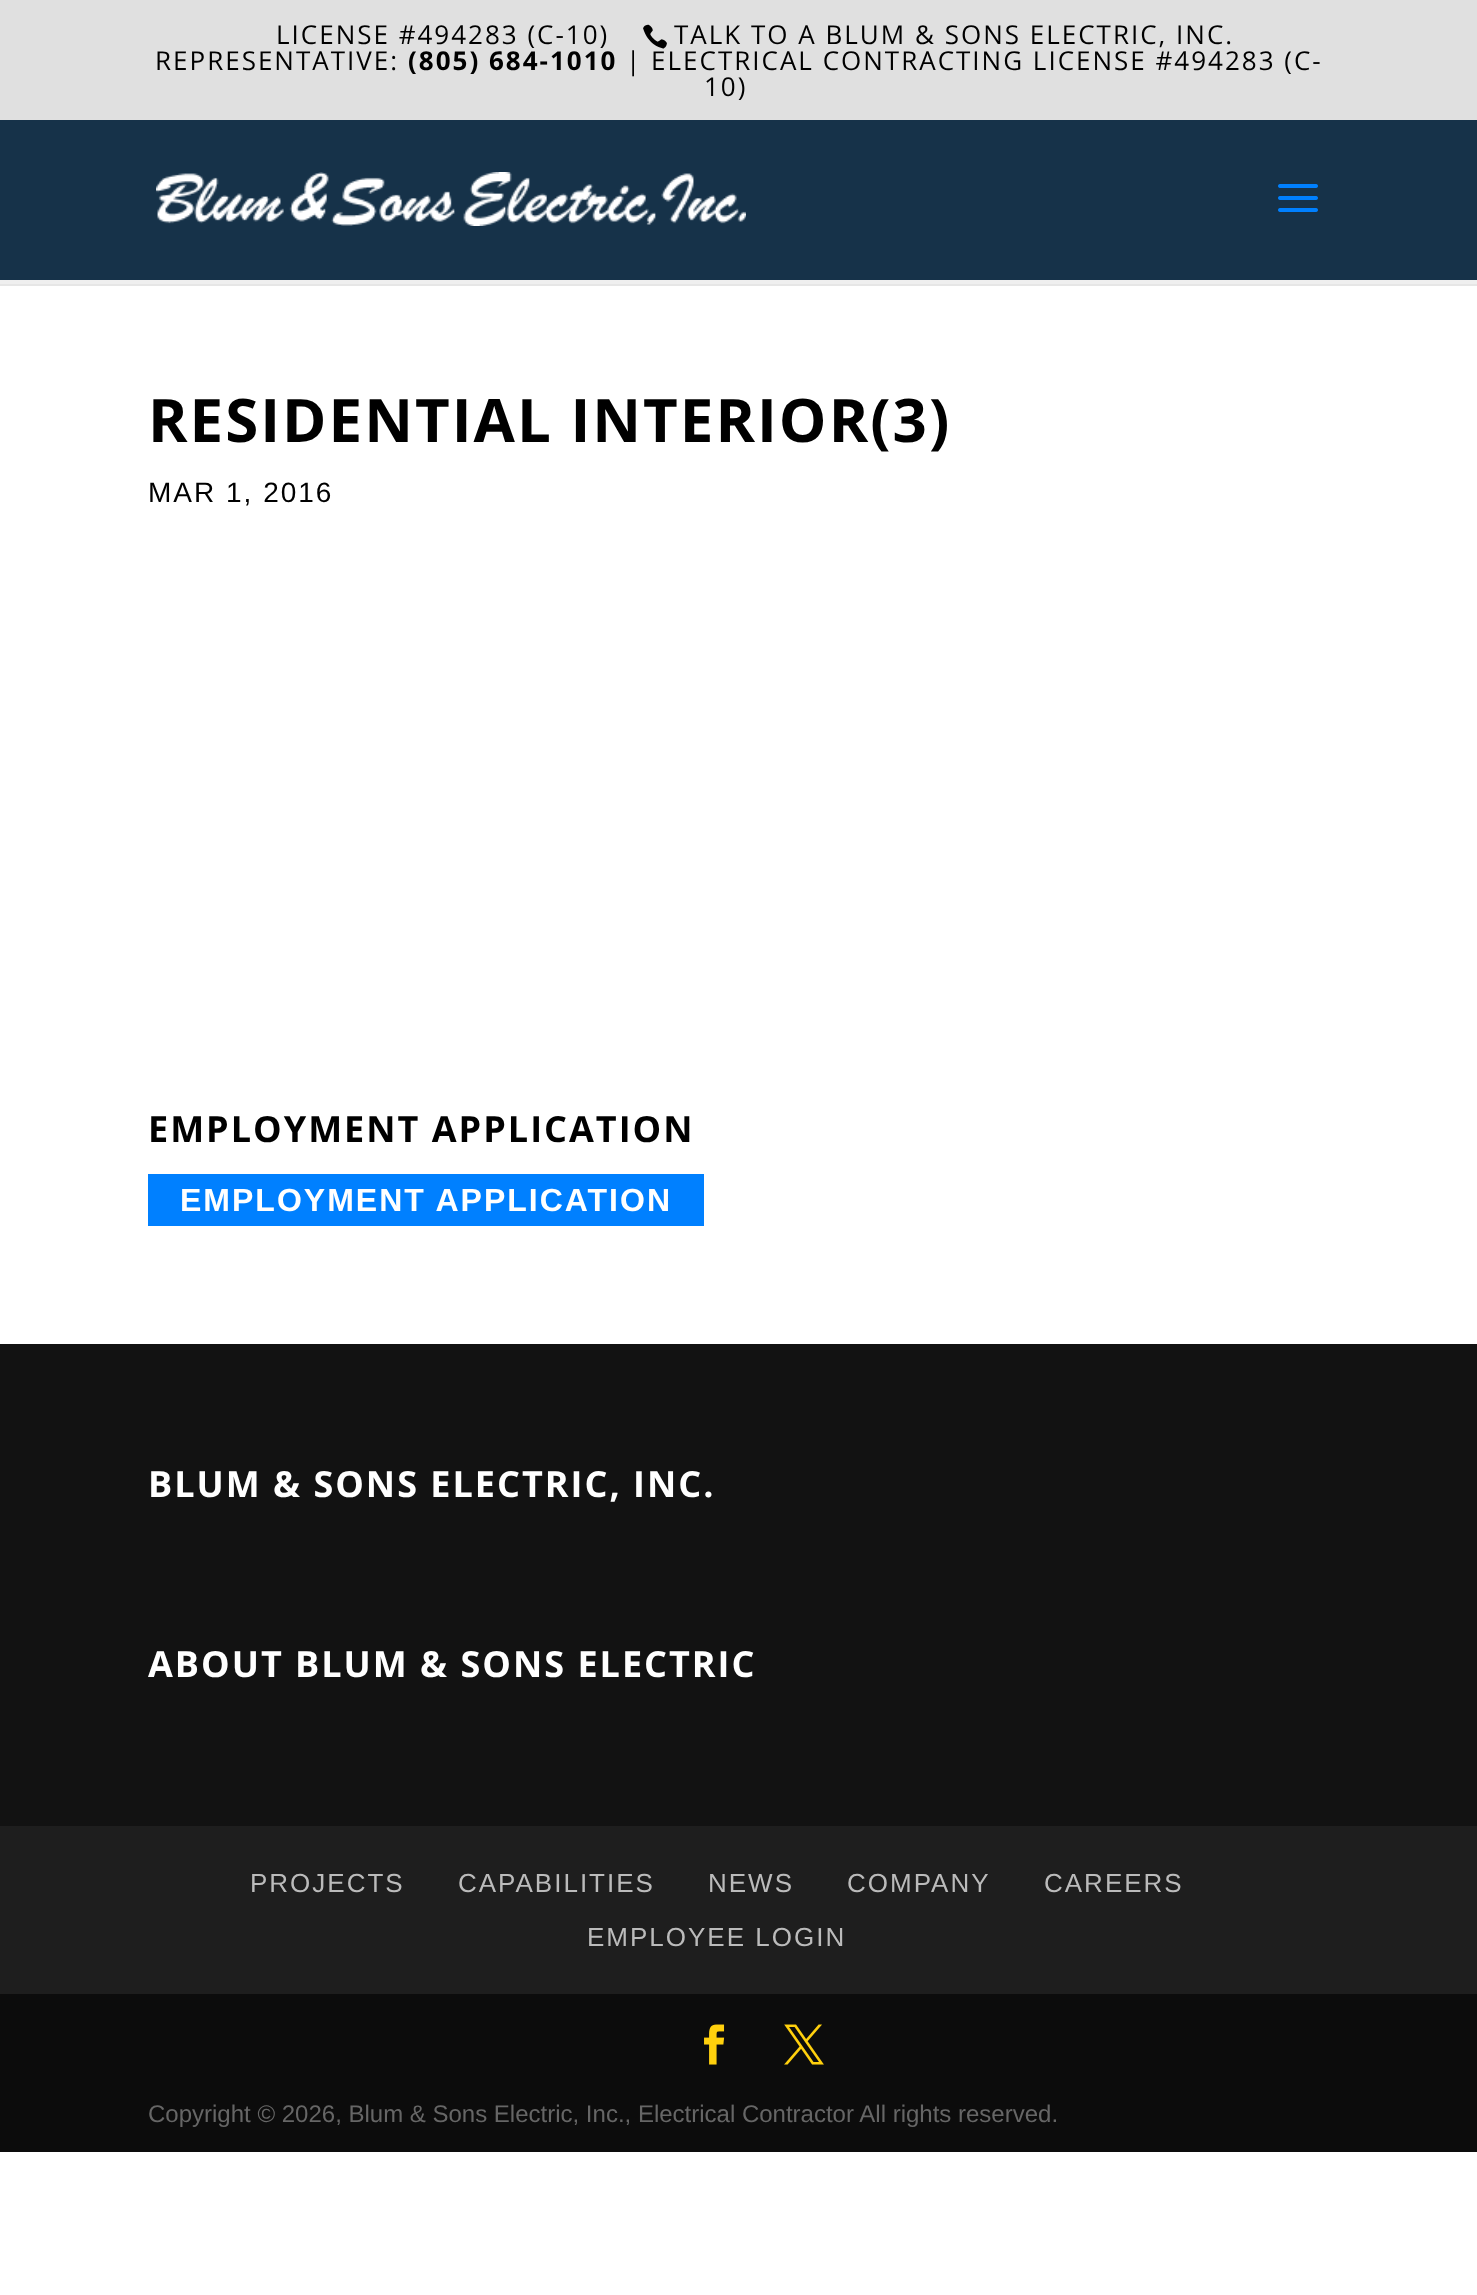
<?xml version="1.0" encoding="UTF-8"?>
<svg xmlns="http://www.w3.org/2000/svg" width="1477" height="2295">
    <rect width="100%" height="100%" fill="#FFFFFF"/>
    <rect x="0" y="0" width="1477" height="120" fill="#E0E0E0"/>
    <text x="276" y="44" font-family="Open Sans" font-size="26" letter-spacing="2" fill="#000000">LICENSE #494283 (C-10)</text>
    <image x="643" y="24" width="24" height="25" href="img_01.png"/>
    <text x="674" y="44" font-family="Open Sans" font-size="26" letter-spacing="2" fill="#000000">TALK TO A BLUM &amp; SONS ELECTRIC, INC.</text>
    <text x="155" y="70" font-family="Open Sans" font-size="26" letter-spacing="2" fill="#000000">REPRESENTATIVE:</text>
    <text x="408" y="70" font-family="Open Sans" font-size="26" font-weight="700" letter-spacing="2" fill="#000000">(805) 684-1010</text>
    <text x="626" y="70" font-family="Open Sans" font-size="26" letter-spacing="2" fill="#000000">| ELECTRICAL CONTRACTING LICENSE #494283 (C-</text>
    <text x="704" y="96" font-family="Open Sans" font-size="26" letter-spacing="2" fill="#000000">10)</text>
    <rect x="0" y="284" width="1477" height="2" fill="#E6E6E6"/>
    <rect x="0" y="120" width="1477" height="160" fill="#163249"/>
    <rect x="0" y="280" width="1477" height="4" fill="#EFEFEF"/>
    <image x="156" y="172" width="590" height="54" href="img_02.png"/>
    <image x="1278" y="184" width="40" height="28" href="img_03.png"/>
    <text x="148" y="442" font-family="Open Sans" font-size="60" font-weight="700" letter-spacing="2" fill="#000000">RESIDENTIAL INTERIOR(3)</text>
    <text x="148" y="502" font-family="Liberation Sans" font-size="28" letter-spacing="2" fill="#000000">MAR 1, 2016</text>
    <text x="148" y="1142" font-family="Open Sans" font-size="36" font-weight="700" letter-spacing="2" fill="#000000">EMPLOYMENT APPLICATION</text>
    <rect x="148" y="1174" width="556" height="52" fill="#0080FF"/>
    <text x="180" y="1211" font-family="Liberation Sans" font-size="32" font-weight="700" letter-spacing="2" fill="#FFFFFF">EMPLOYMENT APPLICATION</text>
    <rect x="0" y="1344" width="1477" height="482" fill="#121212"/>
    <text x="148" y="1497" font-family="Open Sans" font-size="36" font-weight="700" letter-spacing="2" fill="#FFFFFF">BLUM &amp; SONS ELECTRIC, INC.</text>
    <text x="148" y="1677" font-family="Open Sans" font-size="36" font-weight="700" letter-spacing="2" fill="#FFFFFF">ABOUT BLUM &amp; SONS ELECTRIC</text>
    <rect x="0" y="1826" width="1477" height="168" fill="#1E1E1E"/>
    <text x="250" y="1892" font-family="Liberation Sans" font-size="26" letter-spacing="2" fill="#BBBBBB">PROJECTS</text>
    <text x="458" y="1892" font-family="Liberation Sans" font-size="26" letter-spacing="2" fill="#BBBBBB">CAPABILITIES</text>
    <text x="708" y="1892" font-family="Liberation Sans" font-size="26" letter-spacing="2" fill="#BBBBBB">NEWS</text>
    <text x="847" y="1892" font-family="Liberation Sans" font-size="26" letter-spacing="2" fill="#BBBBBB">COMPANY</text>
    <text x="1044" y="1892" font-family="Liberation Sans" font-size="26" letter-spacing="2" fill="#BBBBBB">CAREERS</text>
    <text x="587" y="1946" font-family="Liberation Sans" font-size="26" letter-spacing="2" fill="#BBBBBB">EMPLOYEE LOGIN</text>
    <rect x="0" y="1994" width="1477" height="158" fill="#0C0C0C"/>
    <image x="704" y="2024" width="21" height="41" href="img_04.png"/>
    <image x="784" y="2024" width="40" height="41" href="img_05.png"/>
    <text x="148" y="2122" font-family="Liberation Sans" font-size="24" fill="#666666">Copyright © 2026, Blum &amp; Sons Electric, Inc., Electrical Contractor All rights reserved.</text>
</svg>
